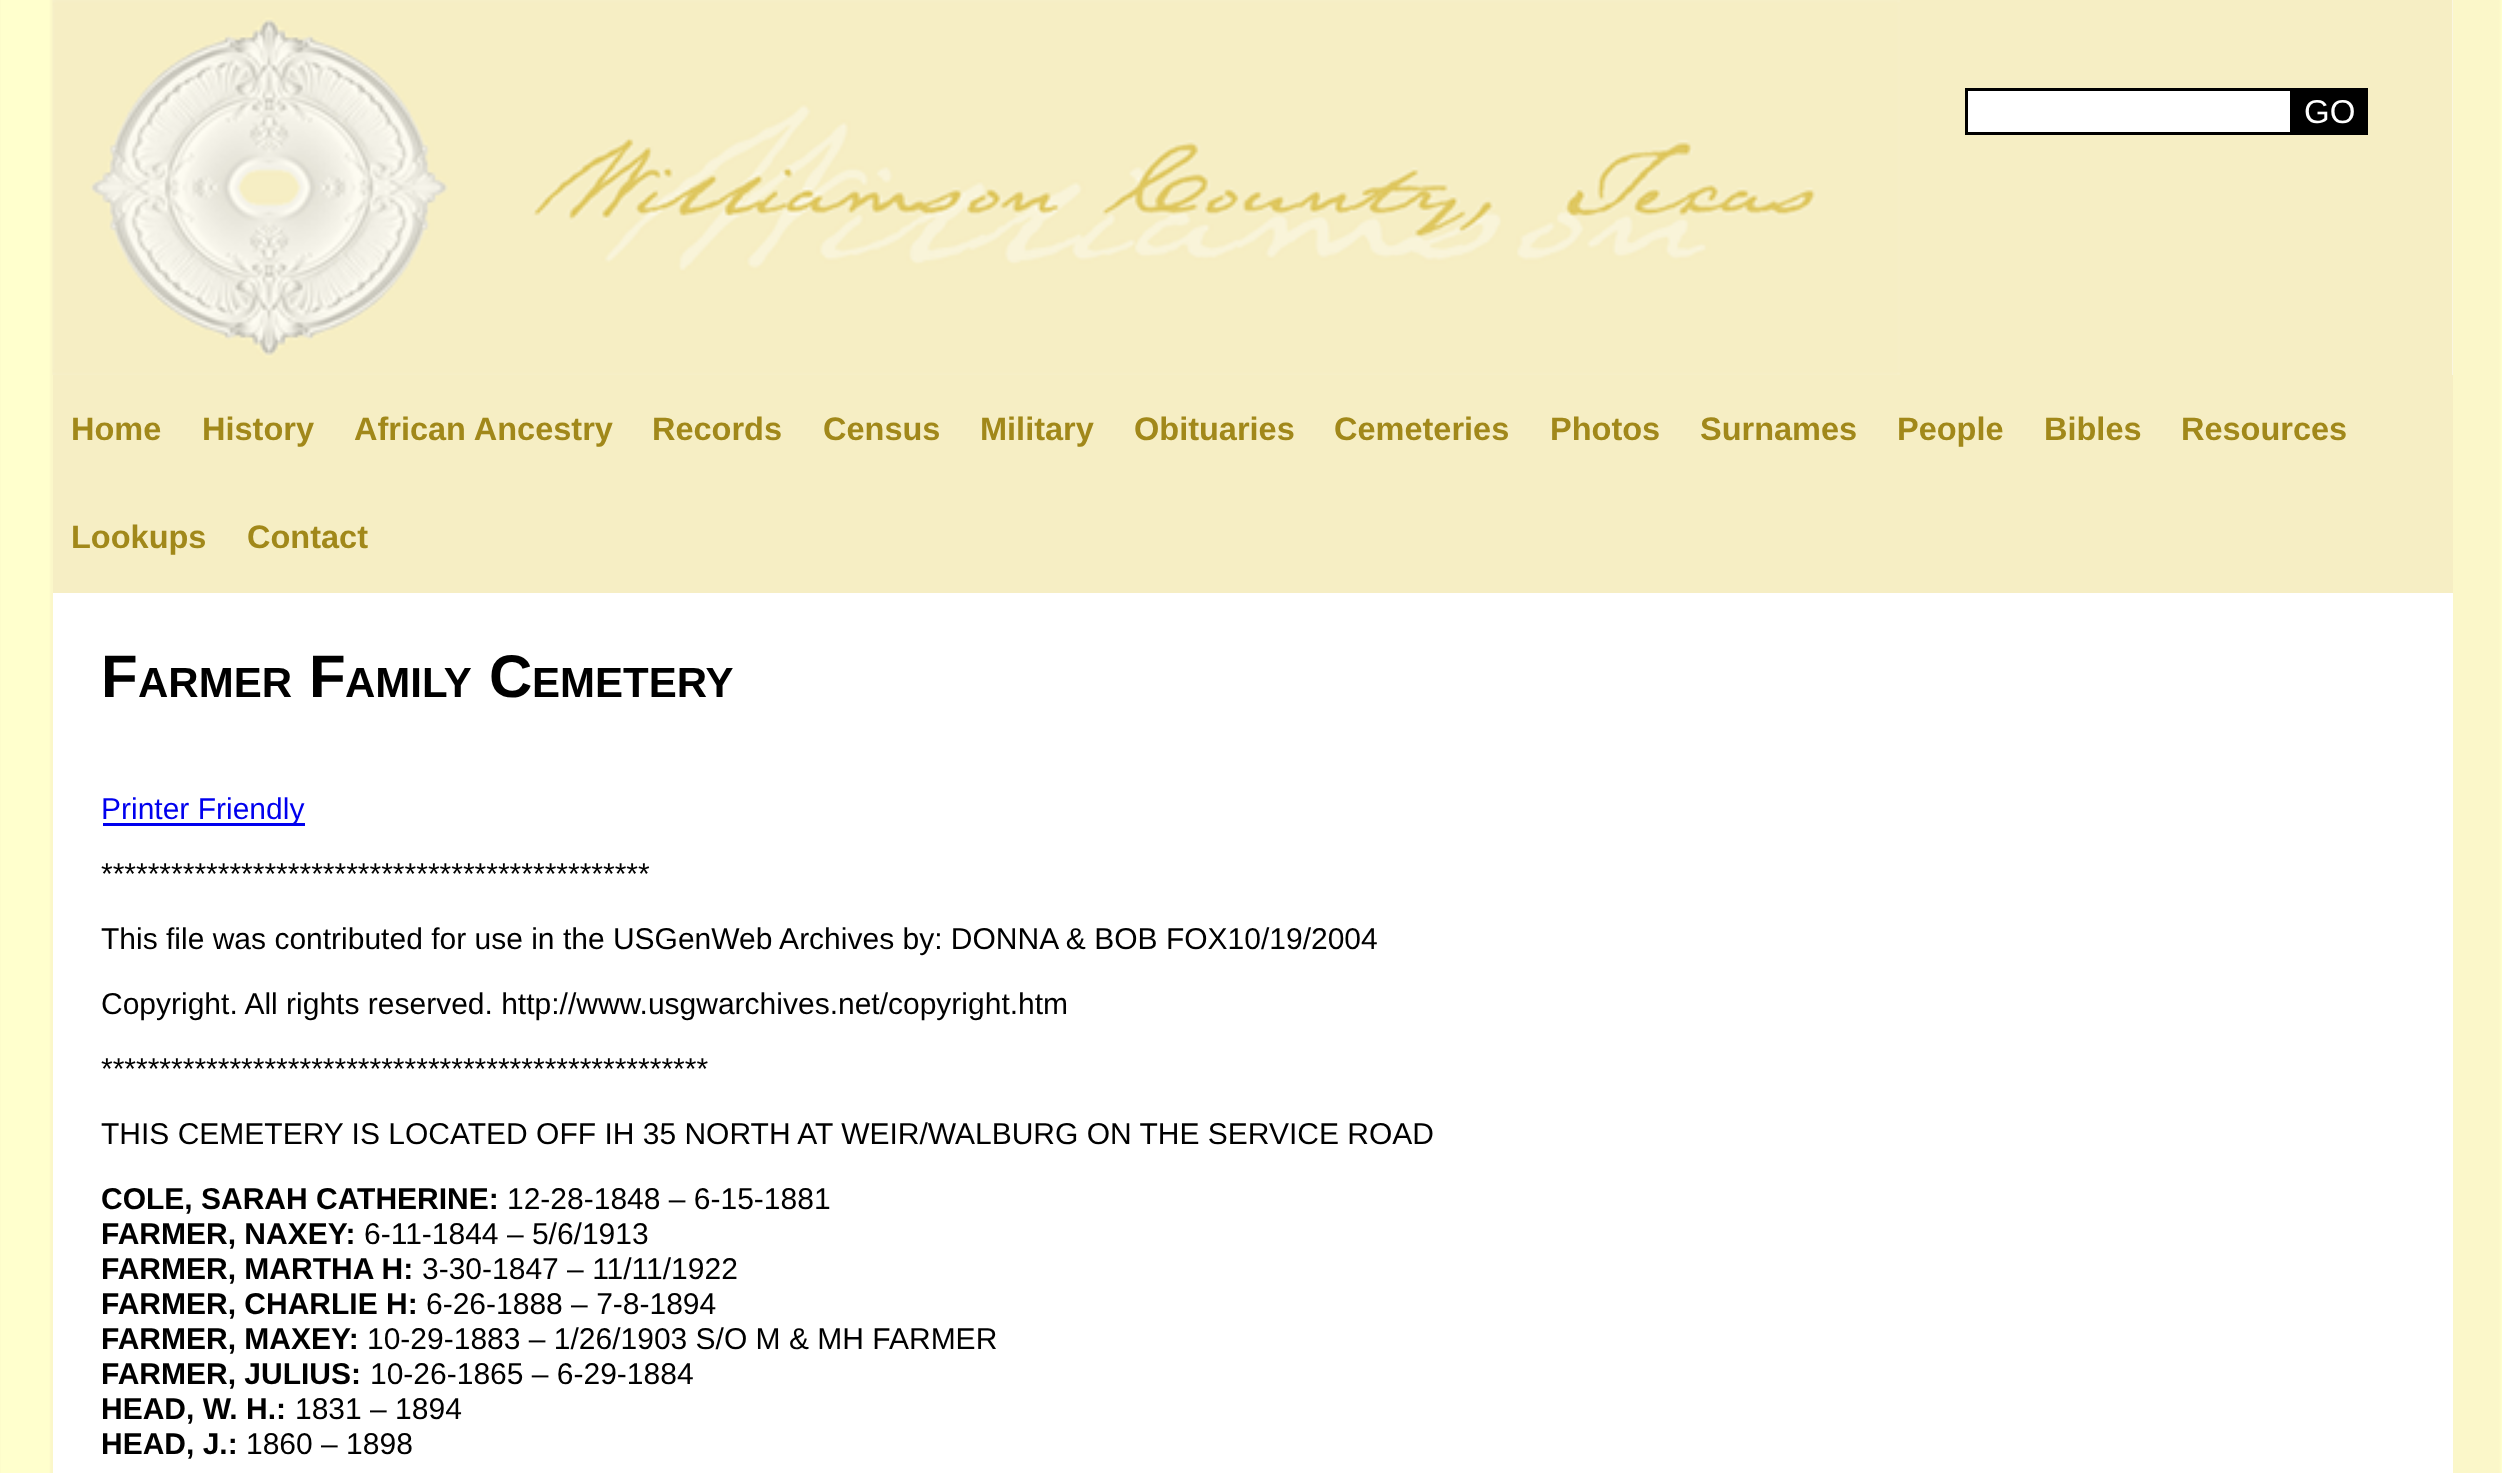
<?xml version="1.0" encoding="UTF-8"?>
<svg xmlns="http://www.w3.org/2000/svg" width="2502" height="1473">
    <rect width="100%" height="100%" fill="#FFFFFF"/>
    <image x="0" y="0" width="2502" height="1473" href="img_01.png"/>
    <rect x="53" y="0" width="2400" height="1473" fill="#FFFFFF"/>
    <image x="52" y="0" width="2401" height="375" href="img_02.png"/>
    <rect x="1966.5" y="89.5" width="325" height="44" fill="#FFFFFF" stroke="#000000" stroke-width="3"/>
    <rect x="2293" y="88" width="75" height="47" fill="#000000"/>
    <text x="2304" y="123" font-family="Liberation Sans" font-size="33" fill="#FFFFFF">GO</text>
    <rect x="53" y="375" width="2400" height="218" fill="#F6EEC4"/>
    <text x="71" y="440" font-family="Liberation Sans" font-size="32.5" font-weight="700" fill="#A1881A">Home</text>
    <text x="202" y="440" font-family="Liberation Sans" font-size="32.5" font-weight="700" fill="#A1881A">History</text>
    <text x="354" y="440" font-family="Liberation Sans" font-size="32.5" font-weight="700" fill="#A1881A">African Ancestry</text>
    <text x="652" y="440" font-family="Liberation Sans" font-size="32.5" font-weight="700" fill="#A1881A">Records</text>
    <text x="823" y="440" font-family="Liberation Sans" font-size="32.5" font-weight="700" fill="#A1881A">Census</text>
    <text x="980" y="440" font-family="Liberation Sans" font-size="32.5" font-weight="700" fill="#A1881A">Military</text>
    <text x="1134" y="440" font-family="Liberation Sans" font-size="32.5" font-weight="700" fill="#A1881A">Obituaries</text>
    <text x="1334" y="440" font-family="Liberation Sans" font-size="32.5" font-weight="700" fill="#A1881A">Cemeteries</text>
    <text x="1550" y="440" font-family="Liberation Sans" font-size="32.5" font-weight="700" fill="#A1881A">Photos</text>
    <text x="1700" y="440" font-family="Liberation Sans" font-size="32.5" font-weight="700" fill="#A1881A">Surnames</text>
    <text x="1897" y="440" font-family="Liberation Sans" font-size="32.5" font-weight="700" fill="#A1881A">People</text>
    <text x="2044" y="440" font-family="Liberation Sans" font-size="32.5" font-weight="700" fill="#A1881A">Bibles</text>
    <text x="2181" y="440" font-family="Liberation Sans" font-size="32.5" font-weight="700" fill="#A1881A">Resources</text>
    <text x="71" y="548" font-family="Liberation Sans" font-size="32.5" font-weight="700" fill="#A1881A">Lookups</text>
    <text x="247" y="548" font-family="Liberation Sans" font-size="32.5" font-weight="700" fill="#A1881A">Contact</text>
    <text x="101" y="697" font-family="Liberation Sans" font-size="60" font-weight="700" fill="#000000">F</text>
    <text x="138" y="697" font-family="Liberation Sans" font-size="42" font-weight="700" fill="#000000">ARMER</text>
    <text x="309" y="697" font-family="Liberation Sans" font-size="60" font-weight="700" fill="#000000">F</text>
    <text x="345" y="697" font-family="Liberation Sans" font-size="42" font-weight="700" fill="#000000">AMILY</text>
    <text x="489" y="697" font-family="Liberation Sans" font-size="60" font-weight="700" fill="#000000">C</text>
    <text x="532" y="697" font-family="Liberation Sans" font-size="42" font-weight="700" fill="#000000">EMETERY</text>
    <rect x="103" y="823" width="202" height="3" fill="#0000EE"/>
    <text x="101" y="819" font-family="Liberation Sans" font-size="30" fill="#0000EE">Printer Friendly</text>
    <text x="101" y="884" font-family="Liberation Sans" font-size="30" fill="#000000">***********************************************</text>
    <text x="101" y="949" font-family="Liberation Sans" font-size="30" fill="#000000">This file was contributed for use in the USGenWeb Archives by: DONNA &amp; BOB FOX10/19/2004</text>
    <text x="101" y="1014" font-family="Liberation Sans" font-size="30" fill="#000000">Copyright. All rights reserved. http://www.usgwarchives.net/copyright.htm</text>
    <text x="101" y="1079" font-family="Liberation Sans" font-size="30" fill="#000000">****************************************************</text>
    <text x="101" y="1144" font-family="Liberation Sans" font-size="30" fill="#000000">THIS CEMETERY IS LOCATED OFF IH 35 NORTH AT WEIR/WALBURG ON THE SERVICE ROAD</text>
    <text x="101" y="1209" font-family="Liberation Sans" font-size="30" font-weight="700" fill="#000000">COLE, SARAH CATHERINE:</text>
    <text x="507" y="1209" font-family="Liberation Sans" font-size="30" fill="#000000">12-28-1848 – 6-15-1881</text>
    <text x="101" y="1244" font-family="Liberation Sans" font-size="30" font-weight="700" fill="#000000">FARMER, NAXEY:</text>
    <text x="364" y="1244" font-family="Liberation Sans" font-size="30" fill="#000000">6-11-1844 – 5/6/1913</text>
    <text x="101" y="1279" font-family="Liberation Sans" font-size="30" font-weight="700" fill="#000000">FARMER, MARTHA H:</text>
    <text x="422" y="1279" font-family="Liberation Sans" font-size="30" fill="#000000">3-30-1847 – 11/11/1922</text>
    <text x="101" y="1314" font-family="Liberation Sans" font-size="30" font-weight="700" fill="#000000">FARMER, CHARLIE H:</text>
    <text x="426" y="1314" font-family="Liberation Sans" font-size="30" fill="#000000">6-26-1888 – 7-8-1894</text>
    <text x="101" y="1349" font-family="Liberation Sans" font-size="30" font-weight="700" fill="#000000">FARMER, MAXEY:</text>
    <text x="367" y="1349" font-family="Liberation Sans" font-size="30" fill="#000000">10-29-1883 – 1/26/1903 S/O M &amp; MH FARMER</text>
    <text x="101" y="1384" font-family="Liberation Sans" font-size="30" font-weight="700" fill="#000000">FARMER, JULIUS:</text>
    <text x="370" y="1384" font-family="Liberation Sans" font-size="30" fill="#000000">10-26-1865 – 6-29-1884</text>
    <text x="101" y="1419" font-family="Liberation Sans" font-size="30" font-weight="700" fill="#000000">HEAD, W. H.:</text>
    <text x="295" y="1419" font-family="Liberation Sans" font-size="30" fill="#000000">1831 – 1894</text>
    <text x="101" y="1454" font-family="Liberation Sans" font-size="30" font-weight="700" fill="#000000">HEAD, J.:</text>
    <text x="246" y="1454" font-family="Liberation Sans" font-size="30" fill="#000000">1860 – 1898</text>
</svg>
